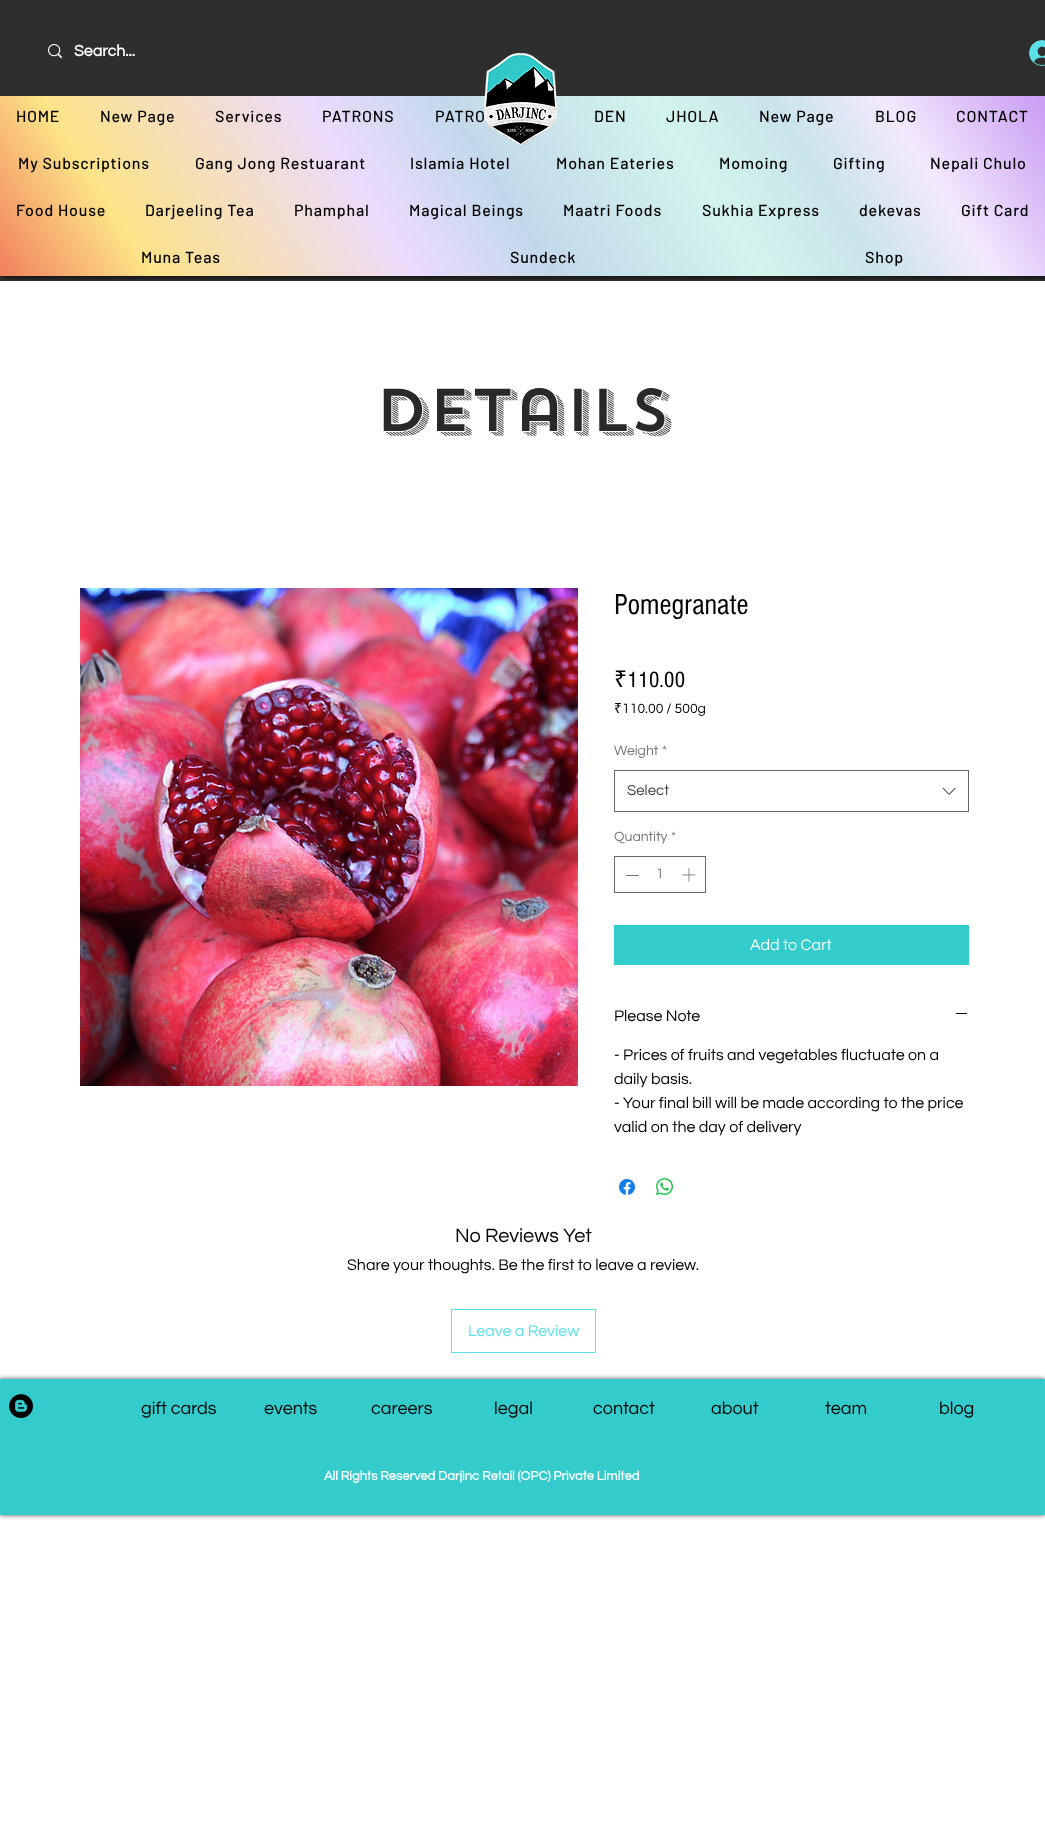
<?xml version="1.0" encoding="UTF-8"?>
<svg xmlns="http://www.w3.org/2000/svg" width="1045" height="1840">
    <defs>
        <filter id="blur1" x="-50%" y="-200%" width="200%" height="500%"><feGaussianBlur stdDeviation="1"/></filter>
        <linearGradient id="g1" gradientUnits="userSpaceOnUse" x1="106" y1="446" x2="939" y2="-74"><stop offset="0" stop-color="#F1805D"/><stop offset="0.13" stop-color="#FDE387"/><stop offset="0.36" stop-color="#ECDBFC"/><stop offset="0.48" stop-color="#C2D9EA"/><stop offset="0.66" stop-color="#D2F4ED"/><stop offset="0.76" stop-color="#C9E4EB"/><stop offset="0.86" stop-color="#F3E9FD"/><stop offset="0.99" stop-color="#CBA1F4"/></linearGradient>
        <filter id="blur2" x="-50%" y="-200%" width="200%" height="500%"><feGaussianBlur stdDeviation="2.5"/></filter>
    </defs>
    <rect width="100%" height="100%" fill="#FFFFFF"/>
    <rect x="0" y="0" width="1045" height="281" fill="#2F2E2E"/>
    <image x="48" y="44" width="14" height="15" href="img_01.png"/>
    <text x="74" y="56" font-family="Questrial" font-size="16" font-weight="700" fill="#FFFFFF">Search...</text>
    <image x="1029" y="40" width="16" height="26" href="img_02.png"/>
    <rect x="3" y="99" width="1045" height="180" fill="#000000" fill-opacity="0.42" filter="url(#blur1)"/>
    <rect x="0" y="96" width="1045" height="180" fill="url(#g1)"/>
    <text x="435" y="122" font-family="Barlow" font-size="16" font-weight="500" letter-spacing="0.8" fill="#000000">PATRO</text>
    <image x="483" y="52" width="75" height="95" href="img_03.png"/>
    <text x="16" y="122" font-family="Barlow" font-size="16" font-weight="500" letter-spacing="0.8" fill="#000000">HOME</text>
    <text x="100" y="122" font-family="Barlow" font-size="16" font-weight="500" letter-spacing="0.8" fill="#000000">New Page</text>
    <text x="215" y="122" font-family="Barlow" font-size="16" font-weight="500" letter-spacing="0.8" fill="#000000">Services</text>
    <text x="322" y="122" font-family="Barlow" font-size="16" font-weight="500" letter-spacing="0.8" fill="#000000">PATRONS</text>
    <text x="594" y="122" font-family="Barlow" font-size="16" font-weight="500" letter-spacing="0.8" fill="#000000">DEN</text>
    <text x="666" y="122" font-family="Barlow" font-size="16" font-weight="500" letter-spacing="0.8" fill="#000000">JHOLA</text>
    <text x="759" y="122" font-family="Barlow" font-size="16" font-weight="500" letter-spacing="0.8" fill="#000000">New Page</text>
    <text x="875" y="122" font-family="Barlow" font-size="16" font-weight="500" letter-spacing="0.8" fill="#000000">BLOG</text>
    <text x="956" y="122" font-family="Barlow" font-size="16" font-weight="500" letter-spacing="0.8" fill="#000000">CONTACT</text>
    <text x="18" y="169" font-family="Barlow" font-size="16" font-weight="500" letter-spacing="0.8" fill="#000000">My Subscriptions</text>
    <text x="195" y="169" font-family="Barlow" font-size="16" font-weight="500" letter-spacing="0.8" fill="#000000">Gang Jong Restuarant</text>
    <text x="410" y="169" font-family="Barlow" font-size="16" font-weight="500" letter-spacing="0.8" fill="#000000">Islamia Hotel</text>
    <text x="556" y="169" font-family="Barlow" font-size="16" font-weight="500" letter-spacing="0.8" fill="#000000">Mohan Eateries</text>
    <text x="719" y="169" font-family="Barlow" font-size="16" font-weight="500" letter-spacing="0.8" fill="#000000">Momoing</text>
    <text x="833" y="169" font-family="Barlow" font-size="16" font-weight="500" letter-spacing="0.8" fill="#000000">Gifting</text>
    <text x="930" y="169" font-family="Barlow" font-size="16" font-weight="500" letter-spacing="0.8" fill="#000000">Nepali Chulo</text>
    <text x="16" y="216" font-family="Barlow" font-size="16" font-weight="500" letter-spacing="0.8" fill="#000000">Food House</text>
    <text x="145" y="216" font-family="Barlow" font-size="16" font-weight="500" letter-spacing="0.8" fill="#000000">Darjeeling Tea</text>
    <text x="294" y="216" font-family="Barlow" font-size="16" font-weight="500" letter-spacing="0.8" fill="#000000">Phamphal</text>
    <text x="409" y="216" font-family="Barlow" font-size="16" font-weight="500" letter-spacing="0.8" fill="#000000">Magical Beings</text>
    <text x="563" y="216" font-family="Barlow" font-size="16" font-weight="500" letter-spacing="0.8" fill="#000000">Maatri Foods</text>
    <text x="702" y="216" font-family="Barlow" font-size="16" font-weight="500" letter-spacing="0.8" fill="#000000">Sukhia Express</text>
    <text x="859" y="216" font-family="Barlow" font-size="16" font-weight="500" letter-spacing="0.8" fill="#000000">dekevas</text>
    <text x="961" y="216" font-family="Barlow" font-size="16" font-weight="500" letter-spacing="0.8" fill="#000000">Gift Card</text>
    <text x="141" y="263" font-family="Barlow" font-size="16" font-weight="500" letter-spacing="0.8" fill="#000000">Muna Teas</text>
    <text x="510" y="263" font-family="Barlow" font-size="16" font-weight="500" letter-spacing="0.8" fill="#000000">Sundeck</text>
    <text x="865" y="263" font-family="Barlow" font-size="16" font-weight="500" letter-spacing="0.8" fill="#000000">Shop</text>
    <text x="375" y="431" font-family="'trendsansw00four'" font-size="60" font-weight="500" fill="#292929">details</text>
    <image x="80" y="588" width="498" height="498" href="img_04.png"/>
    <text x="614" y="614" font-family="'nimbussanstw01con'" font-size="30" fill="#000000">Pomegranate</text>
    <text x="614" y="687" font-family="Noto Sans" font-size="23" fill="#000000">₹</text>
    <text x="627" y="687" font-family="'nimbussanstw01con'" font-size="23" fill="#000000">110.00</text>
    <text x="614" y="713" font-family="Noto Sans" font-size="14" fill="#000000">₹</text>
    <text x="622" y="713" font-family="Questrial" font-size="14" fill="#000000">110.00 / 500g</text>
    <text x="614" y="755" font-family="Questrial" font-size="14" fill="#777777">Weight</text>
    <text x="662" y="755" font-family="Questrial" font-size="14" fill="#777777">*</text>
    <rect x="614.5" y="770.5" width="354" height="41" fill="none" stroke="#666666"/>
    <text x="627" y="795" font-family="Questrial" font-size="15" fill="#444444">Select</text>
    <image x="942" y="787" width="14" height="8" href="img_05.png"/>
    <text x="614" y="841" font-family="Questrial" font-size="14" fill="#777777">Quantity</text>
    <text x="671" y="841" font-family="Questrial" font-size="14" fill="#777777">*</text>
    <rect x="614.5" y="856.5" width="91" height="36" fill="none" stroke="#666666"/>
    <rect x="626" y="875" width="13" height="1" fill="#777777"/>
    <text x="656" y="878" font-family="Questrial" font-size="14" fill="#777777">1</text>
    <image x="682" y="868" width="14" height="14" href="img_06.png"/>
    <rect x="614" y="925" width="355" height="40" fill="#33CCCC"/>
    <text x="750" y="950" font-family="Questrial" font-size="16" fill="#FFFFFF">Add to Cart</text>
    <text x="614" y="1021" font-family="Questrial" font-size="16" fill="#000000">Please Note</text>
    <rect x="956" y="1013" width="11" height="1" fill="#000000"/>
    <text font-family="Questrial" font-size="16" fill="#000000">
        <tspan x="614" y="1060">- Prices of fruits and vegetables fluctuate on a</tspan>
        <tspan x="614" y="1084">daily basis.</tspan>
        <tspan x="614" y="1108">- Your final bill will be made according to the price</tspan>
        <tspan x="614" y="1132">valid on the day of delivery</tspan>
    </text>
    <image x="619" y="1179" width="16" height="16" href="img_07.png"/>
    <image x="656" y="1178" width="17" height="17" href="img_08.png"/>
    <text x="455" y="1242" font-family="Questrial" font-size="20" fill="#000000">No Reviews Yet</text>
    <text x="347" y="1270" font-family="Questrial" font-size="16" fill="#000000">Share your thoughts. Be the first to leave a review.</text>
    <rect x="451.5" y="1309.5" width="144" height="43" fill="none" stroke="#5CE1E6"/>
    <text x="468" y="1336" font-family="Questrial" font-size="16" fill="#5CE1E6">Leave a Review</text>
    <rect x="0" y="1379" width="1045" height="136" fill="#000000" fill-opacity="0.7" filter="url(#blur2)"/>
    <rect x="0" y="1379" width="1045" height="136" fill="#33CBCB"/>
    <image x="9" y="1394" width="24" height="24" href="img_09.png"/>
    <text x="141" y="1414" font-family="Questrial" font-size="18" fill="#000000">gift cards</text>
    <text x="264" y="1414" font-family="Questrial" font-size="18" fill="#000000">events</text>
    <text x="371" y="1414" font-family="Questrial" font-size="18" fill="#000000">careers</text>
    <text x="494" y="1414" font-family="Questrial" font-size="18" fill="#000000">legal</text>
    <text x="593" y="1414" font-family="Questrial" font-size="18" fill="#000000">contact</text>
    <text x="711" y="1414" font-family="Questrial" font-size="18" fill="#000000">about</text>
    <text x="825" y="1414" font-family="Questrial" font-size="18" fill="#000000">team</text>
    <text x="939" y="1414" font-family="Questrial" font-size="18" fill="#000000">blog</text>
    <text x="324" y="1480" font-family="Questrial" font-size="13" font-weight="700" fill="#FFFFFF">All Rights Reserved Darjinc Retail (OPC) Private Limited</text>
</svg>
